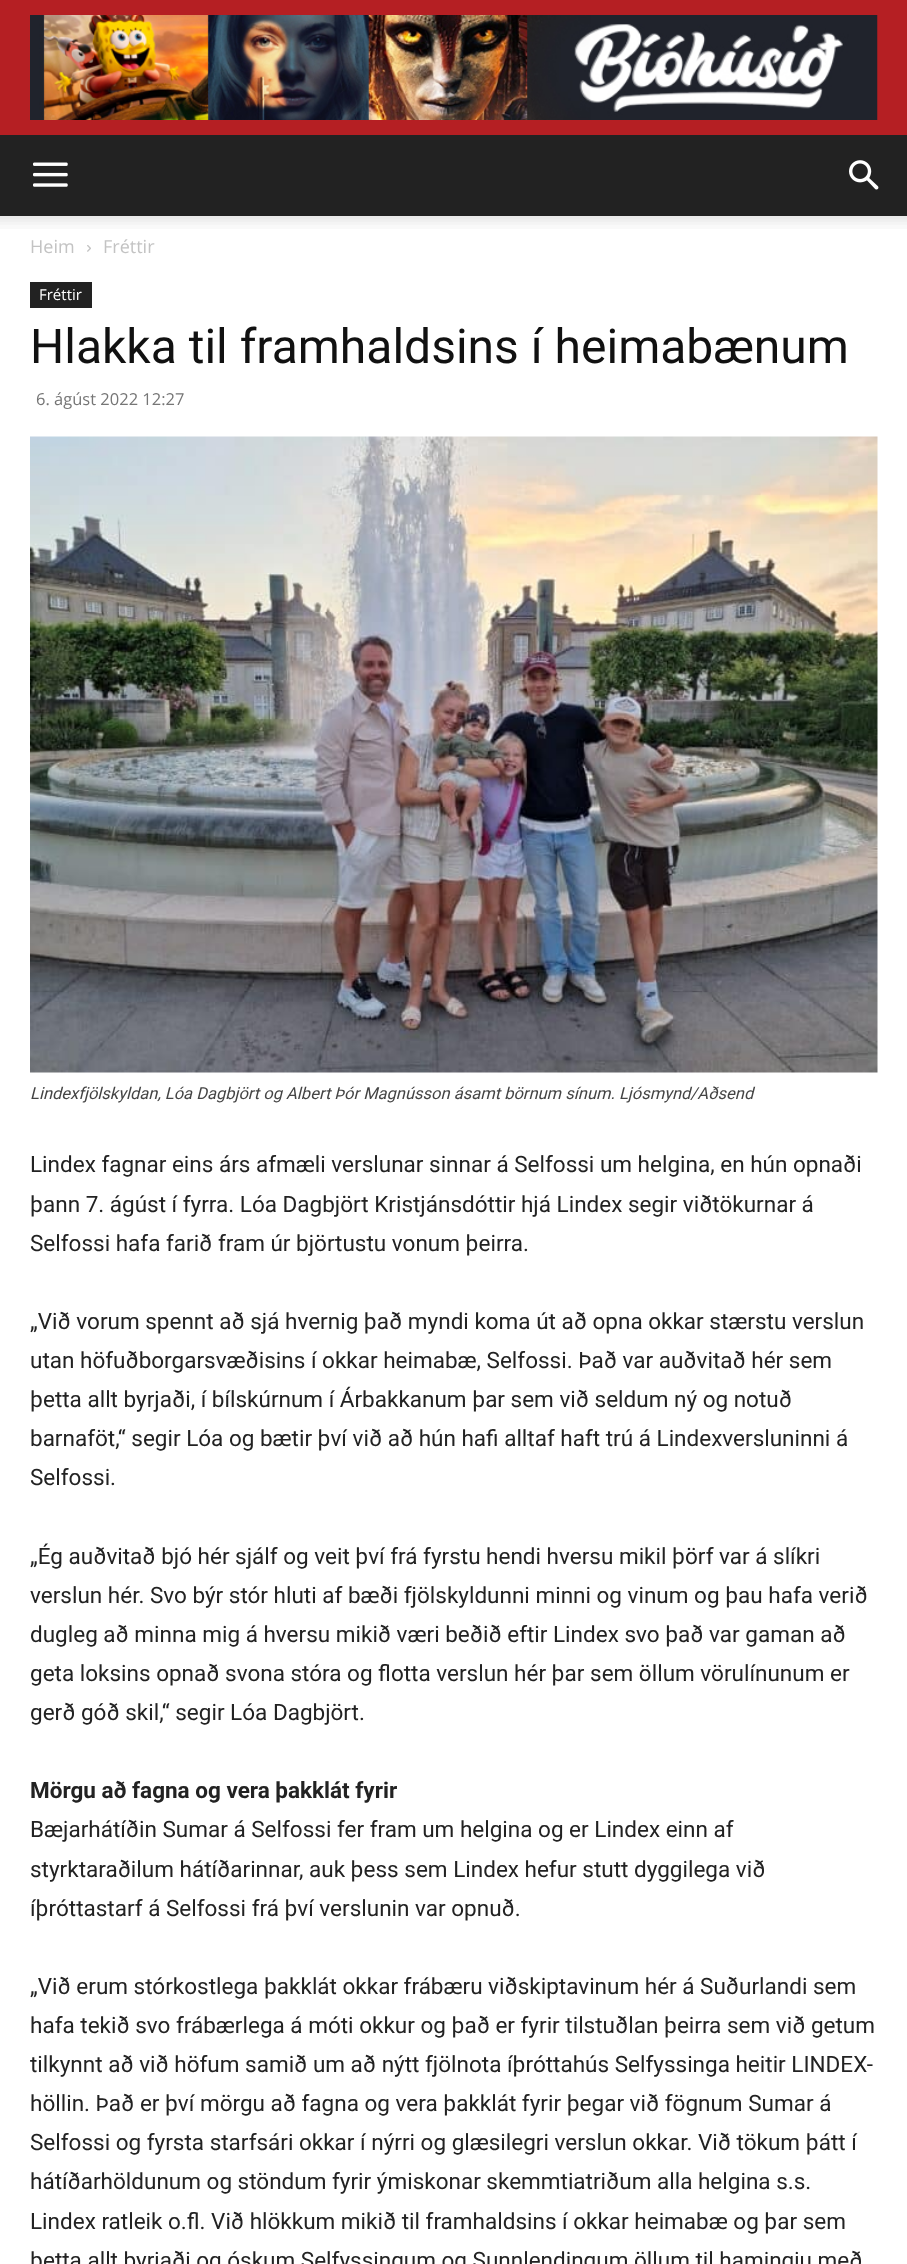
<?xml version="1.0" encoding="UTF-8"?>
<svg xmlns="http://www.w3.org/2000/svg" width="907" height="2264">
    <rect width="100%" height="100%" fill="#FFFFFF"/>
    <rect x="0" y="0" width="907" height="135" fill="#B51F23"/>
    <image x="30" y="15" width="848" height="105" href="img_01.png"/>
    <rect x="0" y="135" width="907" height="81" fill="#222222"/>
    <image x="33" y="162" width="35" height="25" href="img_02.png"/>
    <image x="849" y="160" width="30" height="30" href="img_03.png"/>
    <image x="0" y="216" width="907" height="13" href="img_04.png"/>
    <text x="30" y="253" font-family="Open Sans" font-size="18" fill="#C3C3C3">Heim</text>
    <image x="87" y="245" width="4" height="7" href="img_05.png"/>
    <text x="103" y="253" font-family="Open Sans" font-size="18" fill="#C3C3C3">Fréttir</text>
    <rect x="30" y="282" width="62" height="26" fill="#222222"/>
    <text x="39" y="300" font-family="Open Sans" font-size="15" fill="#FFFFFF">Fréttir</text>
    <text x="30" y="363" font-family="Roboto" font-size="48" fill="#111111">Hlakka til framhaldsins í heimabænum</text>
    <text x="36" y="405" font-family="Open Sans" font-size="16.5" fill="#767676">6. ágúst 2022 12:27</text>
    <image x="30" y="436" width="848" height="637" href="img_06.png"/>
    <text x="30" y="1099" font-family="Roboto" font-size="16.5" font-style="italic" fill="#444444">Lindexfjölskyldan, Lóa Dagbjört og Albert Þór Magnússon ásamt börnum sínum. Ljósmynd/Aðsend</text>
    <text font-family="Roboto" font-size="22.5" fill="#222222">
        <tspan x="30" y="1172">Lindex fagnar eins árs afmæli verslunar sinnar á Selfossi um helgina, en hún opnaði</tspan>
        <tspan x="30" y="1212">þann 7. ágúst í fyrra. Lóa Dagbjört Kristjánsdóttir hjá Lindex segir viðtökurnar á</tspan>
        <tspan x="30" y="1251">Selfossi hafa farið fram úr björtustu vonum þeirra.</tspan>
    </text>
    <text font-family="Roboto" font-size="22.5" fill="#222222">
        <tspan x="30" y="1329">„Við vorum spennt að sjá hvernig það myndi koma út að opna okkar stærstu verslun</tspan>
        <tspan x="30" y="1368">utan höfuðborgarsvæðisins í okkar heimabæ, Selfossi. Það var auðvitað hér sem</tspan>
        <tspan x="30" y="1407">þetta allt byrjaði, í bílskúrnum í Árbakkanum þar sem við seldum ný og notuð</tspan>
        <tspan x="30" y="1446">barnaföt,“ segir Lóa og bætir því við að hún hafi alltaf haft trú á Lindexversluninni á</tspan>
        <tspan x="30" y="1485">Selfossi.</tspan>
    </text>
    <text font-family="Roboto" font-size="22.5" fill="#222222">
        <tspan x="30" y="1564">„Ég auðvitað bjó hér sjálf og veit því frá fyrstu hendi hversu mikil þörf var á slíkri</tspan>
        <tspan x="30" y="1603">verslun hér. Svo býr stór hluti af bæði fjölskyldunni minni og vinum og þau hafa verið</tspan>
        <tspan x="30" y="1642">dugleg að minna mig á hversu mikið væri beðið eftir Lindex svo það var gaman að</tspan>
        <tspan x="30" y="1681">geta loksins opnað svona stóra og flotta verslun hér þar sem öllum vörulínunum er</tspan>
        <tspan x="30" y="1720">gerð góð skil,“ segir Lóa Dagbjört.</tspan>
    </text>
    <text x="30" y="1798" font-family="Roboto" font-size="22.5" font-weight="700" fill="#222222">Mörgu að fagna og vera þakklát fyrir</text>
    <text font-family="Roboto" font-size="22.5" fill="#222222">
        <tspan x="30" y="1837">Bæjarhátíðin Sumar á Selfossi fer fram um helgina og er Lindex einn af</tspan>
        <tspan x="30" y="1877">styrktaraðilum hátíðarinnar, auk þess sem Lindex hefur stutt dyggilega við</tspan>
        <tspan x="30" y="1916">íþróttastarf á Selfossi frá því verslunin var opnuð.</tspan>
    </text>
    <text font-family="Roboto" font-size="22.5" fill="#222222">
        <tspan x="30" y="1994">„Við erum stórkostlega þakklát okkar frábæru viðskiptavinum hér á Suðurlandi sem</tspan>
        <tspan x="30" y="2033">hafa tekið svo frábærlega á móti okkur og það er fyrir tilstuðlan þeirra sem við getum</tspan>
        <tspan x="30" y="2072">tilkynnt að við höfum samið um að nýtt fjölnota íþróttahús Selfyssinga heitir LINDEX-</tspan>
        <tspan x="30" y="2111">höllin. Það er því mörgu að fagna og vera þakklát fyrir þegar við fögnum Sumar á</tspan>
        <tspan x="30" y="2150">Selfossi og fyrsta starfsári okkar í nýrri og glæsilegri verslun okkar. Við tökum þátt í</tspan>
        <tspan x="30" y="2189">hátíðarhöldunum og stöndum fyrir ýmiskonar skemmtiatriðum alla helgina s.s.</tspan>
        <tspan x="30" y="2229">Lindex ratleik o.fl. Við hlökkum mikið til framhaldsins í okkar heimabæ og þar sem</tspan>
        <tspan x="30" y="2268">þetta allt byrjaði og óskum Selfyssingum og Sunnlendingum öllum til hamingju með</tspan>
    </text>
</svg>
